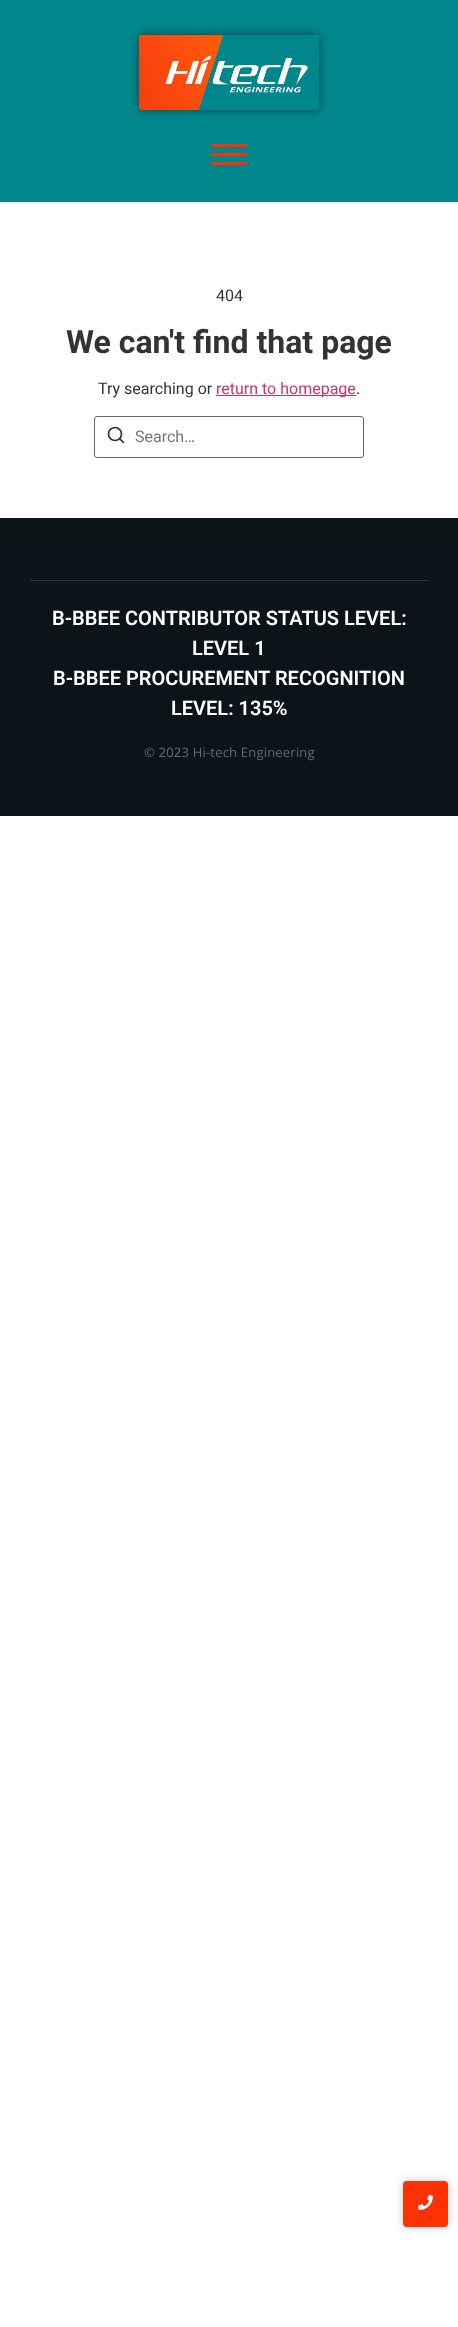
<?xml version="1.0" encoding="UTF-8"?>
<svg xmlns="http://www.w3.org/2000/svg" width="458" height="2327">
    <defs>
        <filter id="blur1" x="-50%" y="-200%" width="200%" height="500%"><feGaussianBlur stdDeviation="5"/></filter>
    </defs>
    <rect width="100%" height="100%" fill="#FFFFFF"/>
    <rect x="0" y="0" width="458" height="202" fill="#00878C"/>
    <rect x="139" y="35" width="180" height="75" rx="2" fill="#000000" fill-opacity="0.5" filter="url(#blur1)"/>
    <image x="139" y="35" width="180" height="75" href="img_01.png"/>
    <rect x="211" y="144" width="36" height="3" fill="#FD3101"/>
    <rect x="211" y="153" width="36" height="3" fill="#FD3101"/>
    <rect x="211" y="162" width="36" height="3" fill="#FD3101"/>
    <text x="216" y="301" font-family="Roboto" font-size="16" fill="#333333">404</text>
    <text x="66" y="353" font-family="Roboto" font-size="32" font-weight="700" fill="#333333">We can't find that page</text>
    <text x="98" y="394" font-family="Roboto" font-size="16" fill="#333333">Try searching or</text>
    <rect x="216" y="395" width="140" height="1" fill="#CC3366"/>
    <text x="216" y="394" font-family="Roboto" font-size="16" fill="#CC3366">return to homepage</text>
    <text x="356" y="394" font-family="Roboto" font-size="16" fill="#333333">.</text>
    <rect x="94.5" y="416.5" width="269" height="41" rx="2.5" fill="none" stroke="#666666"/>
    <circle cx="115" cy="434" r="6.5" fill="none" stroke="#333333" stroke-width="1.7"/>
    <path d="M 123.5 442.5 L 120 439" fill="none" stroke="#333333" stroke-width="1.7" stroke-linecap="round" stroke-linejoin="round"/>
    <text x="135" y="442" font-family="Roboto" font-size="16" fill="#757575">Search…</text>
    <rect x="0" y="518" width="458" height="298" fill="#0B1418"/>
    <rect x="30" y="580" width="398" height="1" fill="#2A373C"/>
    <text x="52" y="625" font-family="Roboto" font-size="20" font-weight="600" fill="#FFFFFF">B-BBEE CONTRIBUTOR STATUS LEVEL:</text>
    <text x="192" y="655" font-family="Roboto" font-size="20" font-weight="600" fill="#FFFFFF">LEVEL 1</text>
    <text x="53" y="685" font-family="Roboto" font-size="20" font-weight="600" fill="#FFFFFF">B-BBEE PROCUREMENT RECOGNITION</text>
    <text x="171" y="715" font-family="Roboto" font-size="20" font-weight="600" fill="#FFFFFF">LEVEL: 135%</text>
    <text x="144" y="757" font-family="Open Sans" font-size="13" letter-spacing="0.2" fill="#636C6F">© 2023 Hi-tech Engineering</text>
    <rect x="403" y="2181" width="45" height="46" rx="4" fill="#000000" fill-opacity="0.2" filter="url(#blur1)"/>
    <rect x="403" y="2181" width="45" height="46" rx="4" fill="#FD3101"/>
    <image x="418" y="2195" width="15" height="15" href="img_02.png"/>
</svg>
